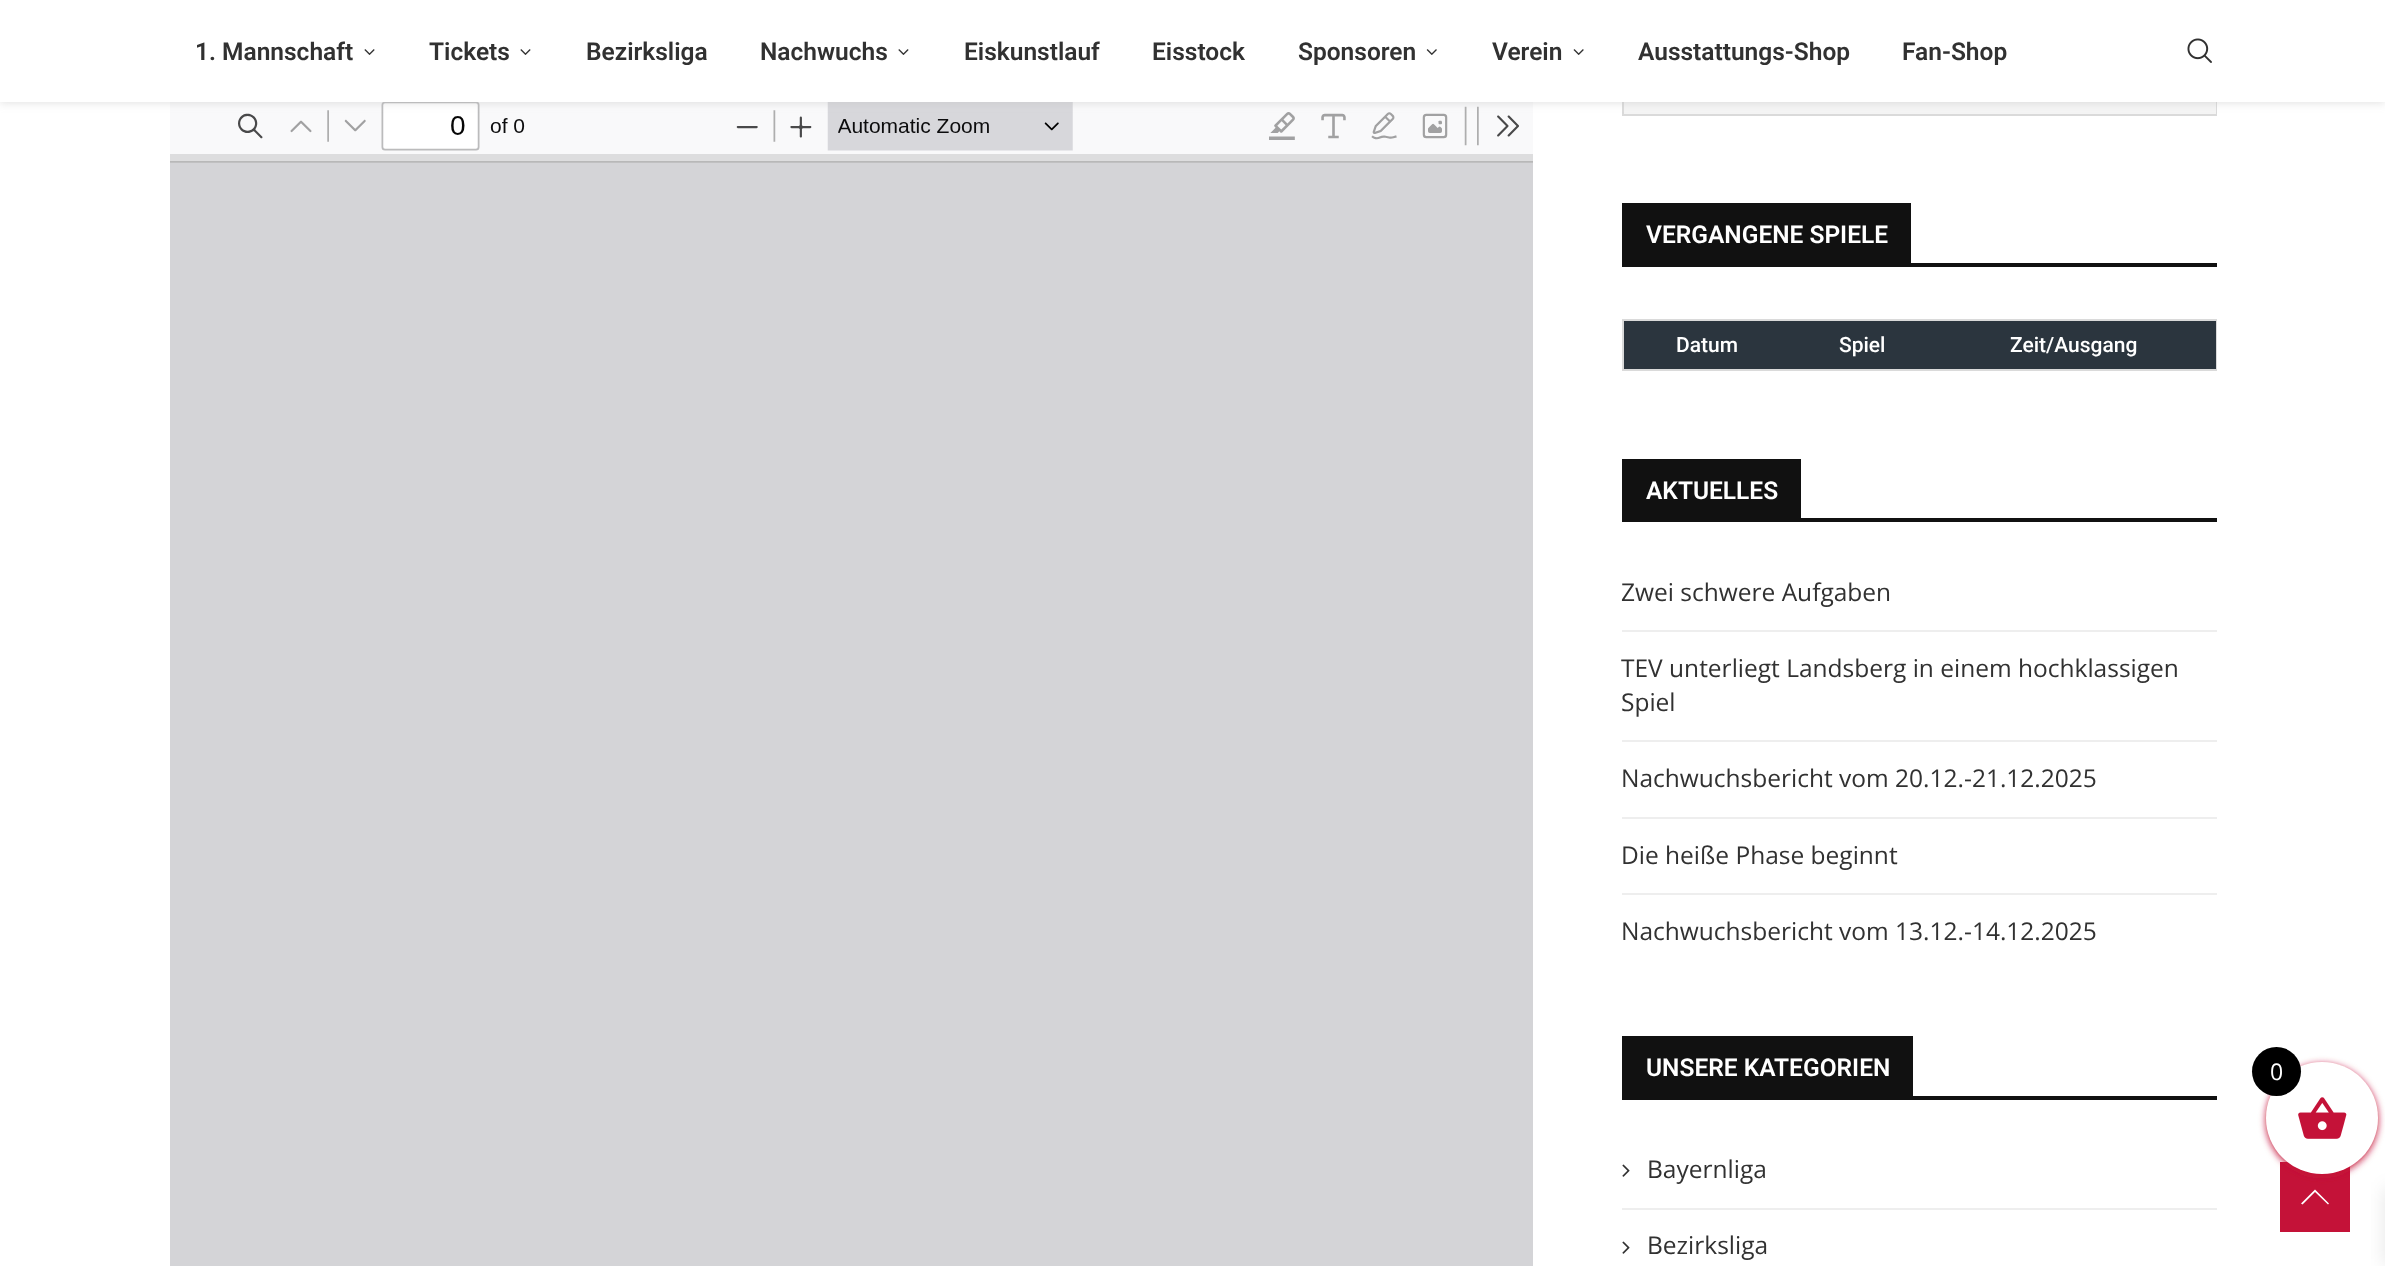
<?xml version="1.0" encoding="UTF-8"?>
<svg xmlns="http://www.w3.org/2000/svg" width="2385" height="1266">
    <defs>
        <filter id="blur1" x="-50%" y="-200%" width="200%" height="500%"><feGaussianBlur stdDeviation="4.5"/></filter>
        <filter id="blur2" x="-50%" y="-200%" width="200%" height="500%"><feGaussianBlur stdDeviation="3.5"/></filter>
        <filter id="blur3" x="-50%" y="-200%" width="200%" height="500%"><feGaussianBlur stdDeviation="9"/></filter>
    </defs>
    <rect width="100%" height="100%" fill="#FFFFFF"/>
    <image x="170" y="102" width="1363" height="1164" href="img_07.png"/>
    <rect x="1624" y="102" width="592" height="12" fill="#F4F4F4"/>
    <rect x="2216" y="102" width="1" height="14" fill="#DADADA"/>
    <rect x="1622" y="114" width="595" height="2" fill="#DADADA"/>
    <rect x="1622" y="102" width="2" height="14" fill="#DADADA"/>
    <rect x="0" y="2" width="2385" height="101" fill="#BEBEBE" fill-opacity="0.46" filter="url(#blur1)"/>
    <rect x="0" y="0" width="2385" height="102" fill="#FFFFFF"/>
    <text x="195" y="60" font-family="Roboto" font-size="24.5" font-weight="600" fill="#313131">1. Mannschaft</text>
    <image x="364" y="49" width="11" height="6" href="img_01.png"/>
    <text x="429" y="60" font-family="Roboto" font-size="24.5" font-weight="600" fill="#313131">Tickets</text>
    <image x="520" y="49" width="11" height="6" href="img_02.png"/>
    <text x="586" y="60" font-family="Roboto" font-size="24.5" font-weight="600" fill="#313131">Bezirksliga</text>
    <text x="760" y="60" font-family="Roboto" font-size="24.5" font-weight="600" fill="#313131">Nachwuchs</text>
    <image x="898" y="49" width="11" height="6" href="img_03.png"/>
    <text x="964" y="60" font-family="Roboto" font-size="24.5" font-weight="600" fill="#313131">Eiskunstlauf</text>
    <text x="1152" y="60" font-family="Roboto" font-size="24.5" font-weight="600" fill="#313131">Eisstock</text>
    <text x="1298" y="60" font-family="Roboto" font-size="24.5" font-weight="600" fill="#313131">Sponsoren</text>
    <image x="1426" y="49" width="11" height="6" href="img_04.png"/>
    <text x="1492" y="60" font-family="Roboto" font-size="24.5" font-weight="600" fill="#313131">Verein</text>
    <image x="1573" y="49" width="11" height="6" href="img_05.png"/>
    <text x="1638" y="60" font-family="Roboto" font-size="24.5" font-weight="600" fill="#313131">Ausstattungs-Shop</text>
    <text x="1902" y="60" font-family="Roboto" font-size="24.5" font-weight="600" fill="#313131">Fan-Shop</text>
    <image x="2187" y="38" width="25" height="25" href="img_06.png"/>
    <rect x="1622" y="263" width="595" height="4" fill="#111111"/>
    <rect x="1626" y="205" width="283" height="58" fill="#111111"/>
    <rect x="1622" y="203" width="289" height="2" fill="#111111"/>
    <rect x="1909" y="203" width="2" height="63" fill="#111111"/>
    <rect x="1622" y="203" width="4" height="63" fill="#111111"/>
    <text x="1646" y="243" font-family="Roboto" font-size="24.5" font-weight="600" fill="#FFFFFF">VERGANGENE SPIELE</text>
    <rect x="1622" y="319" width="595" height="2" fill="#DADADA"/>
    <rect x="2216" y="319" width="1" height="52" fill="#DADADA"/>
    <rect x="1622" y="369" width="595" height="2" fill="#DADADA"/>
    <rect x="1622" y="319" width="2" height="52" fill="#DADADA"/>
    <rect x="1624" y="321" width="592" height="48" fill="#2B353E"/>
    <text x="1676" y="352" font-family="Roboto" font-size="21" font-weight="500" fill="#FFFFFF">Datum</text>
    <text x="1839" y="352" font-family="Roboto" font-size="21" font-weight="500" fill="#FFFFFF">Spiel</text>
    <text x="2010" y="352" font-family="Roboto" font-size="21" font-weight="500" fill="#FFFFFF">Zeit/Ausgang</text>
    <rect x="1622" y="518" width="595" height="4" fill="#111111"/>
    <rect x="1626" y="461" width="173" height="57" fill="#111111"/>
    <rect x="1622" y="459" width="179" height="2" fill="#111111"/>
    <rect x="1799" y="459" width="2" height="63" fill="#111111"/>
    <rect x="1622" y="459" width="4" height="63" fill="#111111"/>
    <text x="1646" y="499" font-family="Roboto" font-size="24.5" font-weight="600" fill="#FFFFFF">AKTUELLES</text>
    <rect x="1622" y="630" width="595" height="2" fill="#EEEEEE"/>
    <text x="1621" y="601" font-family="Open Sans" font-size="24.5" fill="#313131">Zwei schwere Aufgaben</text>
    <rect x="1622" y="740" width="595" height="2" fill="#EEEEEE"/>
    <text font-family="Open Sans" font-size="24.5" fill="#313131">
        <tspan x="1621" y="677">TEV unterliegt Landsberg in einem hochklassigen</tspan>
        <tspan x="1621" y="711">Spiel</tspan>
    </text>
    <rect x="1622" y="817" width="595" height="2" fill="#EEEEEE"/>
    <text x="1621" y="787" font-family="Open Sans" font-size="24.5" fill="#313131">Nachwuchsbericht vom 20.12.-21.12.2025</text>
    <rect x="1622" y="893" width="595" height="2" fill="#EEEEEE"/>
    <text x="1621" y="864" font-family="Open Sans" font-size="24.5" fill="#313131">Die heiße Phase beginnt</text>
    <text x="1621" y="940" font-family="Open Sans" font-size="24.5" fill="#313131">Nachwuchsbericht vom 13.12.-14.12.2025</text>
    <rect x="1622" y="1096" width="595" height="4" fill="#111111"/>
    <rect x="1626" y="1038" width="285" height="58" fill="#111111"/>
    <rect x="1622" y="1036" width="291" height="2" fill="#111111"/>
    <rect x="1911" y="1036" width="2" height="63" fill="#111111"/>
    <rect x="1622" y="1036" width="4" height="63" fill="#111111"/>
    <text x="1646" y="1076" font-family="Roboto" font-size="24.5" font-weight="600" fill="#FFFFFF">UNSERE KATEGORIEN</text>
    <rect x="1622" y="1208" width="595" height="2" fill="#EEEEEE"/>
    <image x="1622" y="1164" width="8" height="13" href="img_08.png"/>
    <text x="1647" y="1178" font-family="Open Sans" font-size="24.5" fill="#313131">Bayernliga</text>
    <image x="1622" y="1241" width="8" height="13" href="img_08.png"/>
    <text x="1647" y="1254" font-family="Open Sans" font-size="24.5" fill="#313131">Bezirksliga</text>
    <rect x="2280" y="1162" width="70" height="70" fill="#C41238"/>
    <rect x="2266" y="1064" width="112" height="112" rx="56" fill="#C41238" filter="url(#blur2)"/>
    <rect x="2385" y="1188" width="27" height="77" fill="#000000" fill-opacity="0.1" filter="url(#blur3)"/>
    <circle cx="2322" cy="1118" r="56" fill="#FFFFFF"/>
    <circle cx="2276.5" cy="1071.5" r="24.5" fill="#000000"/>
    <text x="2270" y="1080" font-family="Open Sans" font-size="23" fill="#FFFFFF">0</text>
    <image x="2298" y="1097" width="49" height="42" href="img_09.png"/>
    <path d="M 2315 1189.5 L 2301 1203.5 L 2302.5 1204.5 L 2315 1192 L 2328 1204.5 L 2329 1203.5 Z" fill="#FFFFFF"/>
</svg>
